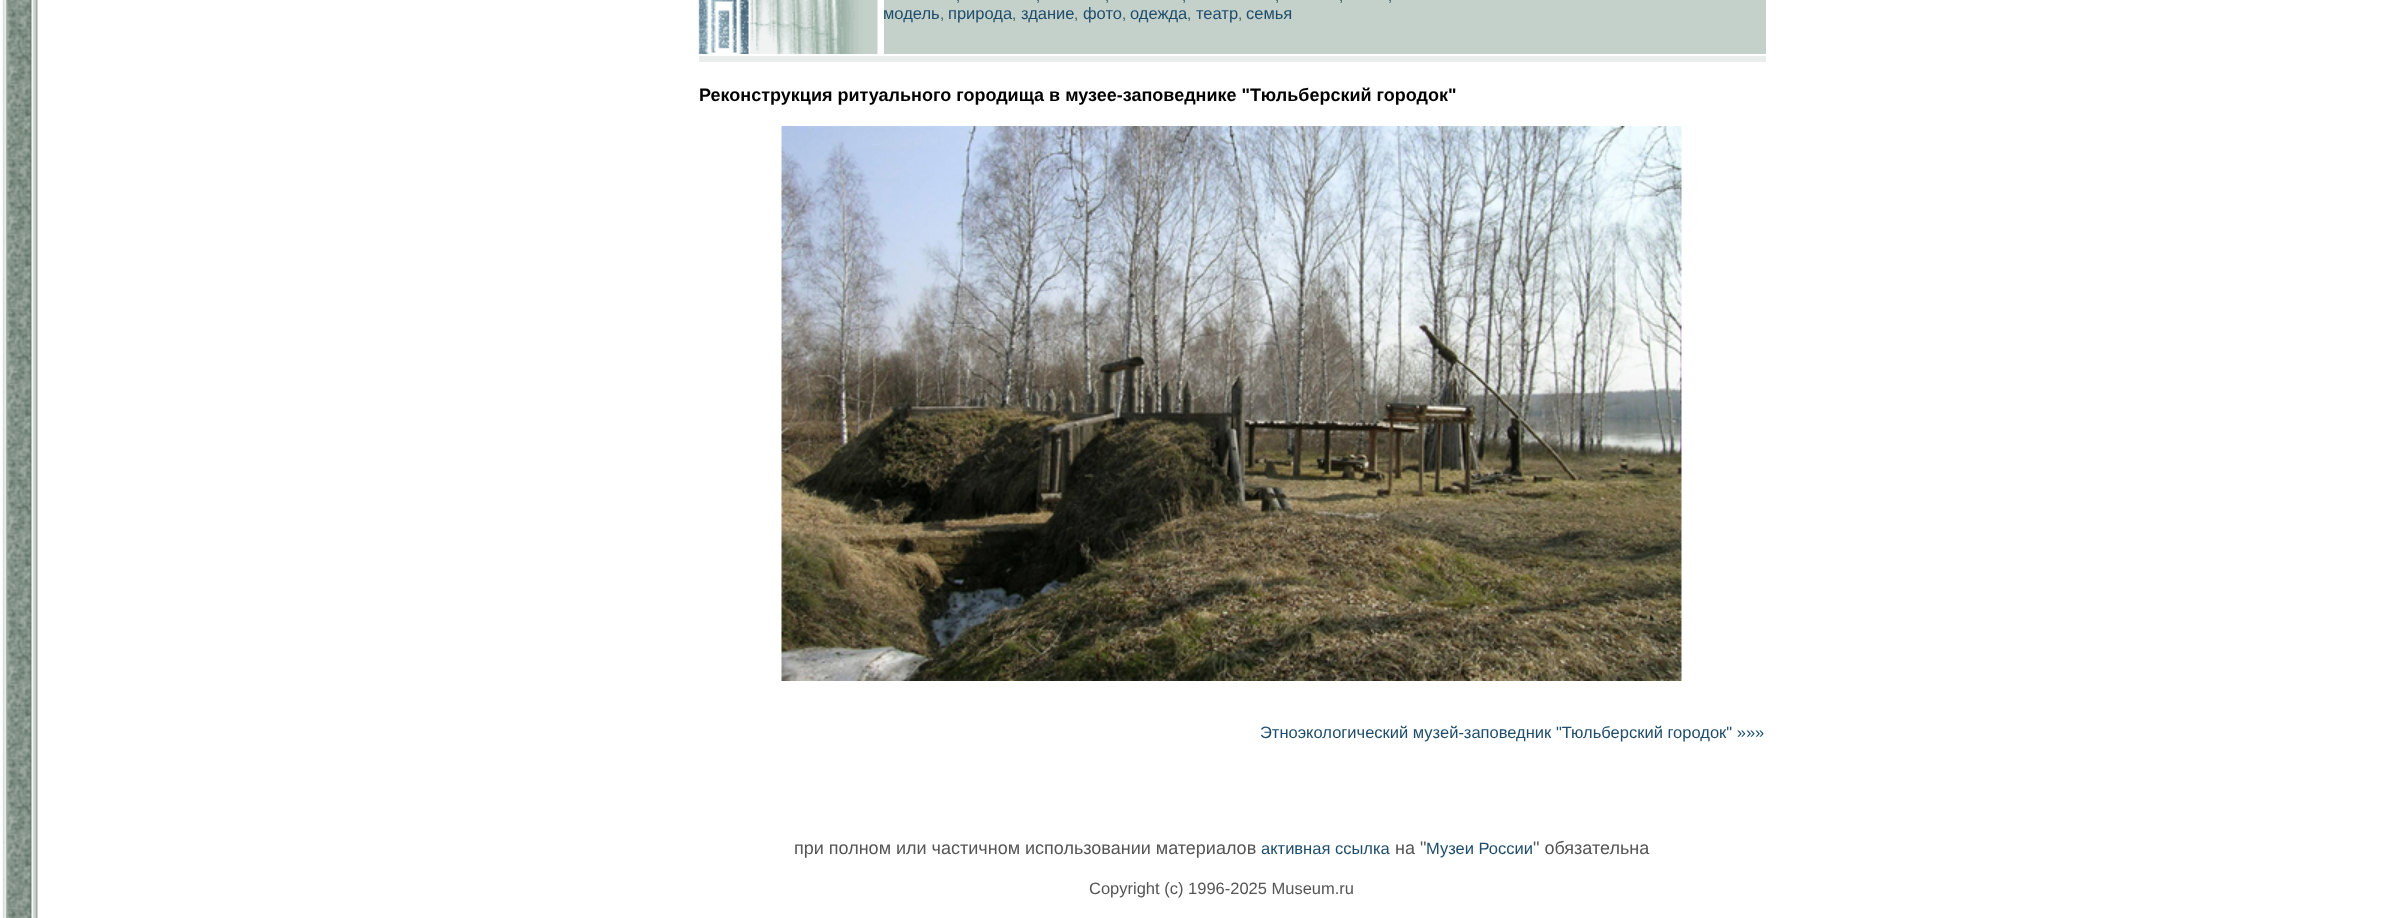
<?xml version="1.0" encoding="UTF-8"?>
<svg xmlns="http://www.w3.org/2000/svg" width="2397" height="918">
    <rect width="100%" height="100%" fill="#FFFFFF"/>
    <image x="2" y="0" width="36" height="918" href="img_01.png"/>
    <image x="698" y="0" width="51" height="54" href="img_02.png"/>
    <image x="750" y="0" width="128" height="54" href="img_03.png"/>
    <rect x="884" y="0" width="882" height="54" fill="#C4D0CA"/>
    <text x="956" y="1" font-family="Liberation Sans" font-size="15" fill="#39595C">,</text>
    <text x="1036" y="1" font-family="Liberation Sans" font-size="15" fill="#39595C">,</text>
    <text x="1105" y="1" font-family="Liberation Sans" font-size="15" fill="#39595C">,</text>
    <text x="1182" y="1" font-family="Liberation Sans" font-size="15" fill="#39595C">,</text>
    <text x="1275" y="1" font-family="Liberation Sans" font-size="15" fill="#39595C">,</text>
    <text x="1339" y="1" font-family="Liberation Sans" font-size="15" fill="#39595C">,</text>
    <text x="1388" y="1" font-family="Liberation Sans" font-size="15" fill="#39595C">,</text>
    <text x="883" y="19" font-family="Liberation Sans" font-size="16.5" fill="#1E4C6A">модель</text>
    <text x="940" y="19" font-family="Liberation Sans" font-size="15" fill="#39595C">,</text>
    <text x="948" y="19" font-family="Liberation Sans" font-size="16.5" fill="#1E4C6A">природа</text>
    <text x="1012" y="19" font-family="Liberation Sans" font-size="15" fill="#39595C">,</text>
    <text x="1021" y="19" font-family="Liberation Sans" font-size="16.5" fill="#1E4C6A">здание</text>
    <text x="1074" y="19" font-family="Liberation Sans" font-size="15" fill="#39595C">,</text>
    <text x="1083" y="19" font-family="Liberation Sans" font-size="16.5" fill="#1E4C6A">фото</text>
    <text x="1122" y="19" font-family="Liberation Sans" font-size="15" fill="#39595C">,</text>
    <text x="1130" y="19" font-family="Liberation Sans" font-size="16.5" fill="#1E4C6A">одежда</text>
    <text x="1187" y="19" font-family="Liberation Sans" font-size="15" fill="#39595C">,</text>
    <text x="1196" y="19" font-family="Liberation Sans" font-size="16.5" fill="#1E4C6A">театр</text>
    <text x="1238" y="19" font-family="Liberation Sans" font-size="15" fill="#39595C">,</text>
    <text x="1246" y="19" font-family="Liberation Sans" font-size="16.5" fill="#1E4C6A">семья</text>
    <rect x="699" y="56" width="1067" height="6" fill="#E9EDEB"/>
    <text x="699" y="101" font-family="Liberation Sans" font-size="18" font-weight="700" fill="#000000">Реконструкция ритуального городища в музее-заповеднике "Тюльберский городок"</text>
    <image x="781" y="126" width="901" height="555" href="img_04.png"/>
    <text x="1260" y="738" font-family="Liberation Sans" font-size="16.5" fill="#1E4C6A">Этноэкологический музей-заповедник "Тюльберский городок" »»»</text>
    <text x="794" y="854" font-family="Liberation Sans" font-size="18" fill="#555555">при полном или частичном использовании материалов</text>
    <text x="1261" y="854" font-family="Liberation Sans" font-size="16.5" fill="#1E4C6A">активная ссылка</text>
    <text x="1395" y="854" font-family="Liberation Sans" font-size="18" fill="#555555">на "</text>
    <text x="1426" y="854" font-family="Liberation Sans" font-size="16.5" fill="#1E4C6A">Музеи России</text>
    <text x="1533" y="854" font-family="Liberation Sans" font-size="18" fill="#555555">" обязательна</text>
    <text x="1089" y="894" font-family="Liberation Sans" font-size="16.5" fill="#555555">Copyright (c) 1996-2025 Museum.ru</text>
</svg>
